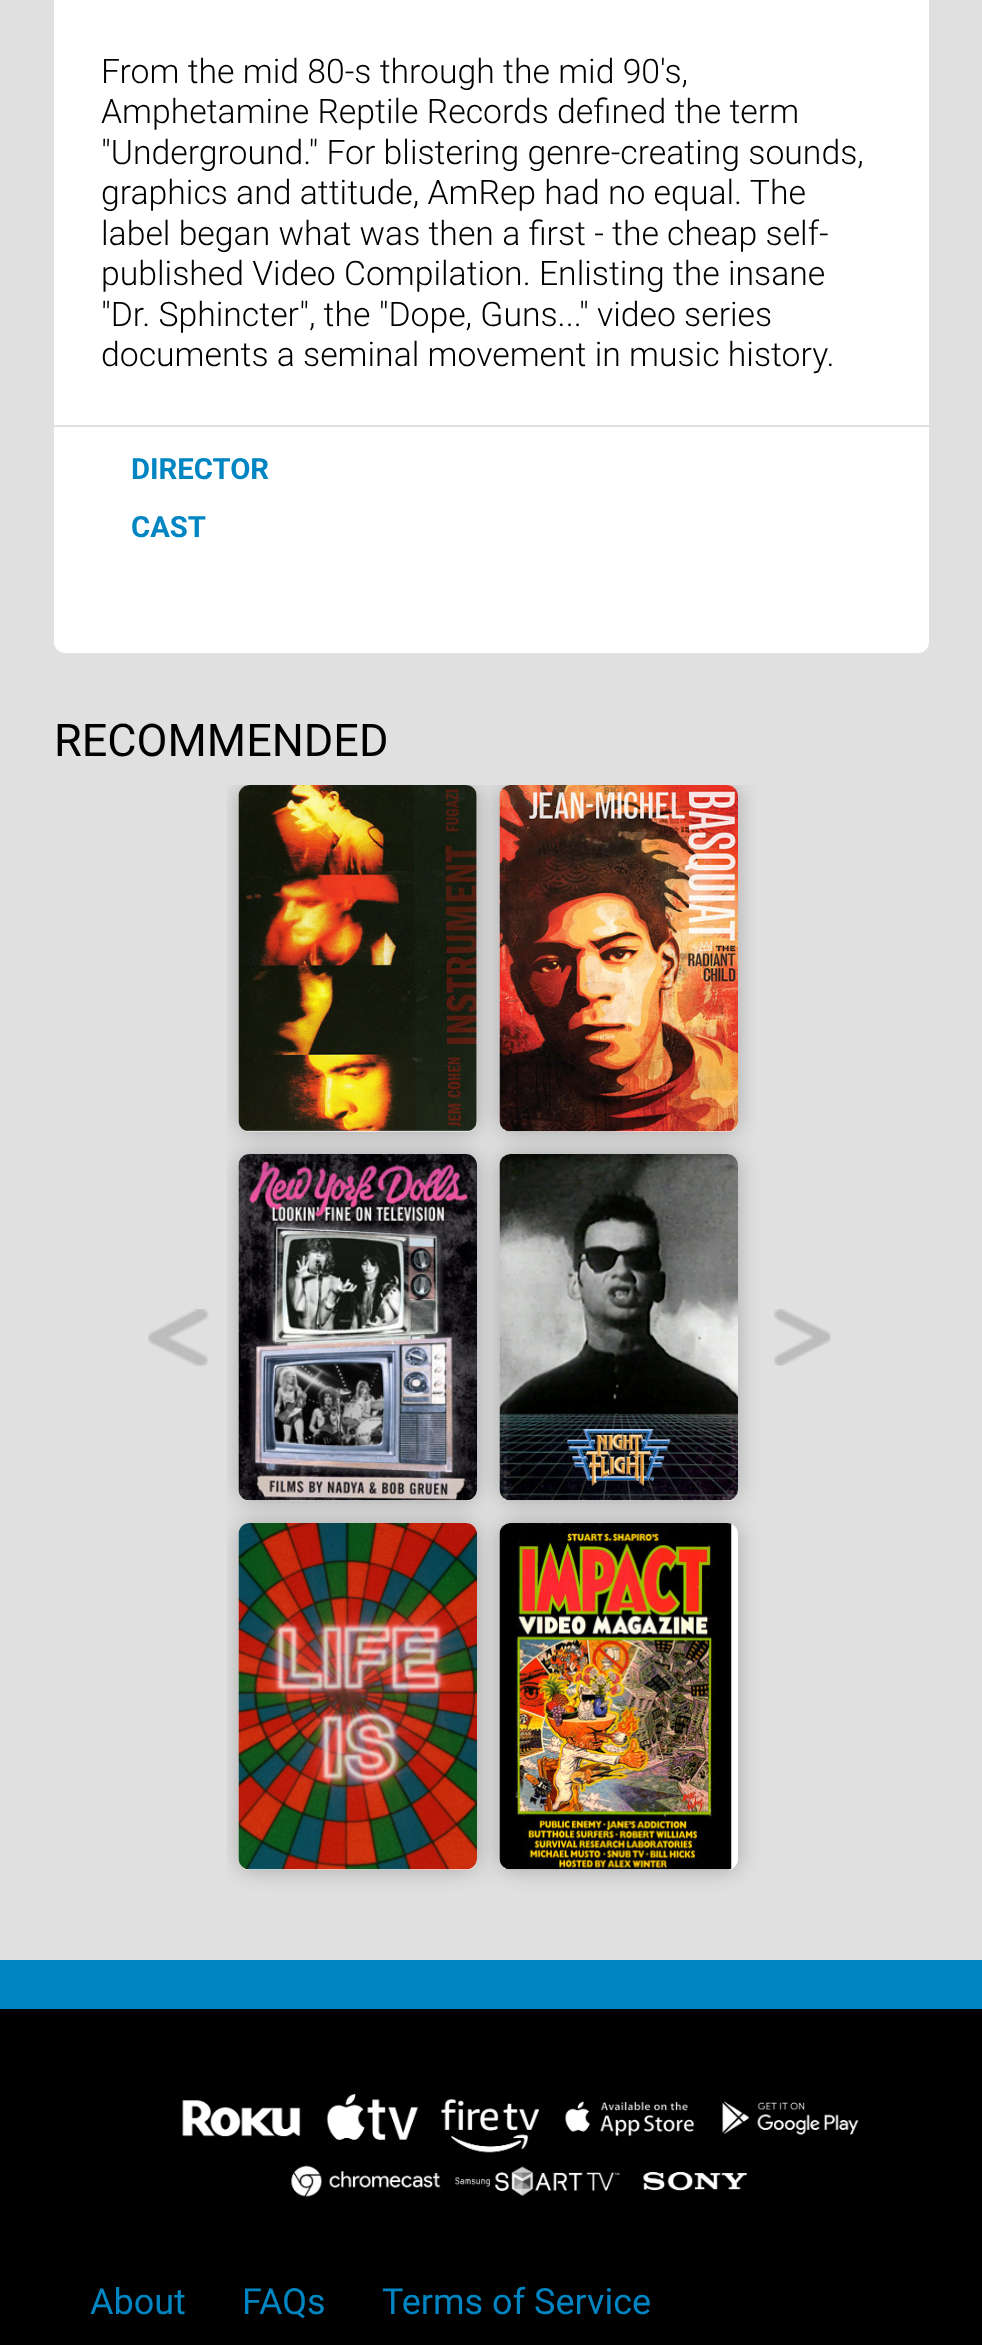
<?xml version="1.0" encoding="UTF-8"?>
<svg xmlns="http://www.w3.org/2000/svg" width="982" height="2345">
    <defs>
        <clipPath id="clip1"><rect x="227" y="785" width="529" height="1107"/></clipPath>
        <filter id="blur1" x="-50%" y="-200%" width="200%" height="500%"><feGaussianBlur stdDeviation="11"/></filter>
    </defs>
    <rect width="100%" height="100%" fill="#000000"/>
    <rect x="0" y="0" width="982" height="1960" fill="#E0E0E0"/>
    <rect x="0" y="1960" width="982" height="49" fill="#0085C3"/>
    <path d="M 54 -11 H 929 V 642 C 929 648 924 653 918 653 H 65 C 59 653 54 648 54 642 Z" fill="#FFFFFF"/>
    <text font-family="Roboto" font-size="33.75" font-weight="300" fill="#000000">
        <tspan x="101" y="83">From the mid 80-s through the mid 90's,</tspan>
        <tspan x="101" y="123">Amphetamine Reptile Records defined the term</tspan>
        <tspan x="101" y="164">"Underground." For blistering genre-creating sounds,</tspan>
        <tspan x="101" y="204">graphics and attitude, AmRep had no equal. The</tspan>
        <tspan x="101" y="245">label began what was then a first - the cheap self-</tspan>
        <tspan x="101" y="285">published Video Compilation. Enlisting the insane</tspan>
        <tspan x="101" y="326">"Dr. Sphincter", the "Dope, Guns..." video series</tspan>
        <tspan x="101" y="366">documents a seminal movement in music history.</tspan>
    </text>
    <rect x="54" y="425" width="875" height="2" fill="#E0E0E0"/>
    <text font-family="Roboto" font-size="29.25" font-weight="700" fill="#0085C3">
        <tspan x="131" y="479">DIRECTOR</tspan>
        <tspan x="131" y="537">CAST</tspan>
    </text>
    <g clip-path="url(#clip1)">
        <rect x="239" y="785" width="238" height="347" rx="11" fill="#000000" fill-opacity="0.25" filter="url(#blur1)"/>
    </g>
    <text x="54" y="756" font-family="Roboto" font-size="45" fill="#000000">RECOMMENDED</text>
    <rect x="239" y="785" width="238" height="347" rx="11" fill="#FFFFFF"/>
    <image x="238" y="785" width="239" height="347" href="img_02.png"/>
    <g clip-path="url(#clip1)">
        <rect x="500" y="785" width="238" height="347" rx="11" fill="#000000" fill-opacity="0.25" filter="url(#blur1)"/>
    </g>
    <rect x="500" y="785" width="238" height="347" rx="11" fill="#FFFFFF"/>
    <image x="499" y="785" width="239" height="347" href="img_03.png"/>
    <g clip-path="url(#clip1)">
        <rect x="239" y="1154" width="238" height="347" rx="11" fill="#000000" fill-opacity="0.25" filter="url(#blur1)"/>
    </g>
    <image x="148" y="1309" width="61" height="57" href="img_01.png"/>
    <rect x="239" y="1154" width="238" height="347" rx="11" fill="#FFFFFF"/>
    <image x="238" y="1154" width="239" height="347" href="img_04.png"/>
    <rect x="500" y="1154" width="238" height="347" rx="11" fill="#000000" fill-opacity="0.25" filter="url(#blur1)"/>
    <rect x="500" y="1154" width="238" height="347" rx="11" fill="#FFFFFF"/>
    <image x="499" y="1154" width="239" height="347" href="img_05.png"/>
    <g clip-path="url(#clip1)">
        <rect x="239" y="1523" width="238" height="347" rx="11" fill="#000000" fill-opacity="0.25" filter="url(#blur1)"/>
    </g>
    <rect x="239" y="1523" width="238" height="347" rx="11" fill="#FFFFFF"/>
    <image x="238" y="1523" width="239" height="347" href="img_06.png"/>
    <rect x="500" y="1523" width="238" height="347" rx="11" fill="#000000" fill-opacity="0.25" filter="url(#blur1)"/>
    <rect x="500" y="1523" width="238" height="347" rx="11" fill="#FFFFFF"/>
    <image x="499" y="1523" width="233" height="347" href="img_07.png"/>
    <image x="774" y="1309" width="57" height="57" href="img_08.png"/>
    <image x="182" y="2094" width="677" height="103" href="img_09.png"/>
    <text x="90" y="2314" font-family="Roboto" font-size="36" fill="#0085C3">About</text>
    <text x="242" y="2314" font-family="Roboto" font-size="36" fill="#0085C3">FAQs</text>
    <text x="382" y="2314" font-family="Roboto" font-size="36" fill="#0085C3">Terms of Service</text>
</svg>
